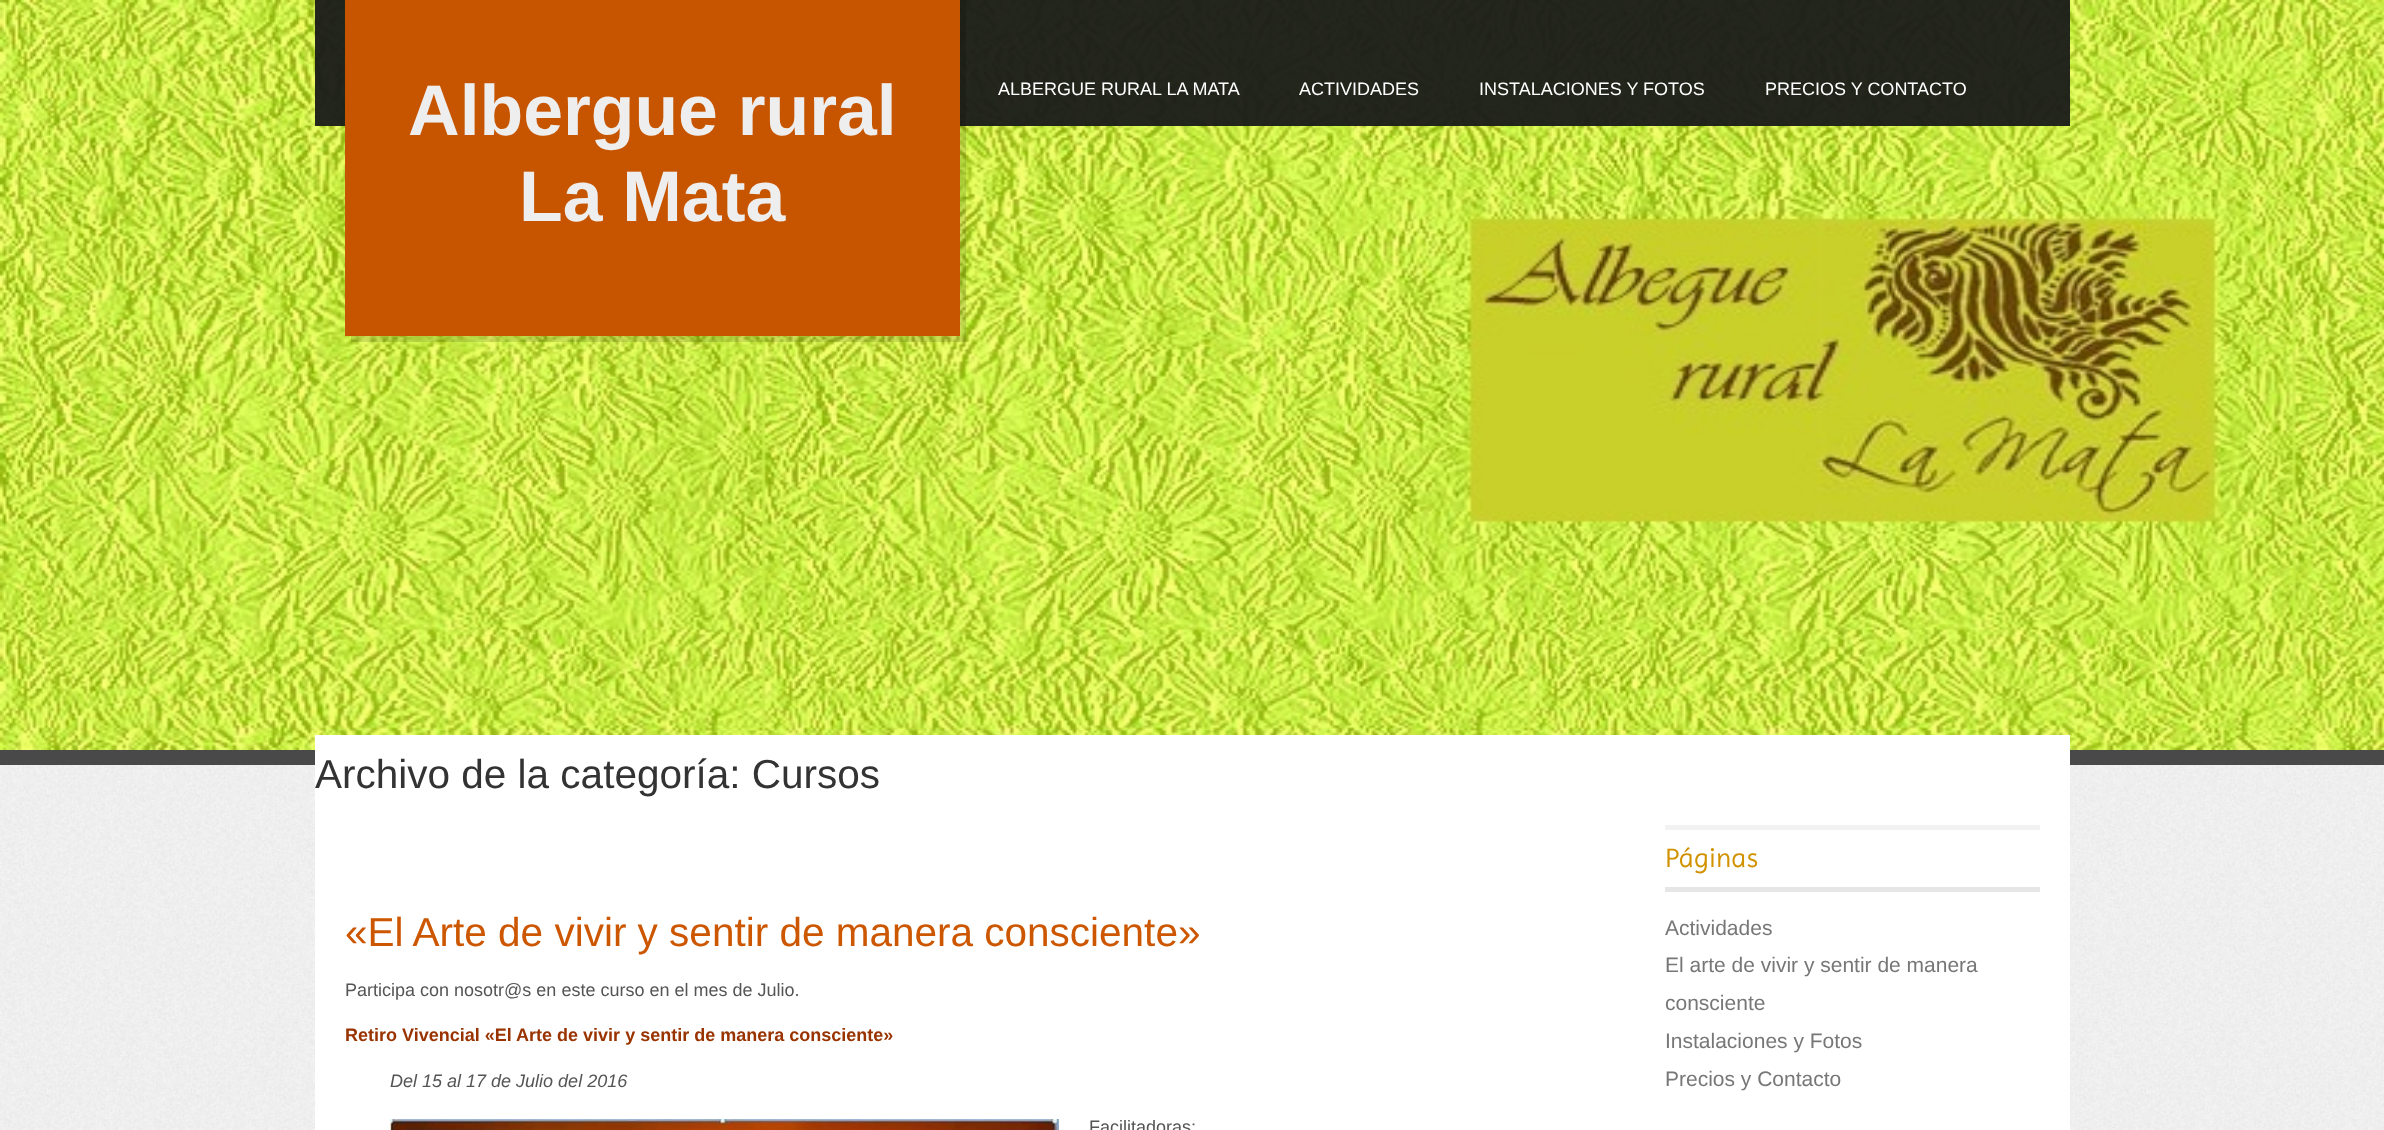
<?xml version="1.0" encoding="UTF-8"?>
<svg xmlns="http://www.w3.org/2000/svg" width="2384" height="1130">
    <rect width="100%" height="100%" fill="#FFFFFF"/>
    <image x="0" y="765" width="2384" height="365" href="img_01.png"/>
    <image x="0" y="0" width="2384" height="750" href="img_02.png"/>
    <rect x="315" y="0" width="1755" height="126" fill="#191A19" fill-opacity="0.95"/>
    <path d="M 351 336 V 342 H 966 V -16 H 960 V 336 Z" fill="#000000" fill-opacity="0.12"/>
    <rect x="345" y="0" width="615" height="336" fill="#C75500"/>
    <text x="408" y="135" font-family="Liberation Sans" font-size="71.5" font-weight="700" fill="#EEEEEE">Albergue rural</text>
    <text x="519" y="221" font-family="Liberation Sans" font-size="71.5" font-weight="700" fill="#EEEEEE">La Mata</text>
    <text x="998" y="95" font-family="Liberation Sans" font-size="18" fill="#FFFFFF">ALBERGUE RURAL LA MATA</text>
    <text x="1299" y="95" font-family="Liberation Sans" font-size="18" fill="#FFFFFF">ACTIVIDADES</text>
    <text x="1479" y="95" font-family="Liberation Sans" font-size="18" fill="#FFFFFF">INSTALACIONES Y FOTOS</text>
    <text x="1765" y="95" font-family="Liberation Sans" font-size="18" fill="#FFFFFF">PRECIOS Y CONTACTO</text>
    <rect x="0" y="750" width="2384" height="15" fill="#484948"/>
    <rect x="315" y="735" width="1755" height="395" fill="#FFFFFF"/>
    <text x="315" y="788" font-family="Liberation Sans" font-size="40.5" fill="#333333">Archivo de la categoría: Cursos</text>
    <text x="345" y="946" font-family="Liberation Sans" font-size="40.5" fill="#CC5700">«El Arte de vivir y sentir de manera consciente»</text>
    <text x="345" y="996" font-family="Liberation Sans" font-size="18" fill="#555555">Participa con nosotr@s en este curso en el mes de Julio.</text>
    <text x="345" y="1041" font-family="Liberation Sans" font-size="18" font-weight="700" fill="#993300">Retiro Vivencial «El Arte de vivir y sentir de manera consciente»</text>
    <text x="390" y="1087" font-family="Liberation Sans" font-size="18" font-style="italic" fill="#555555">Del 15 al 17 de Julio del 2016</text>
    <image x="390" y="1119" width="669" height="11" href="img_03.png"/>
    <text x="1089" y="1133" font-family="Liberation Sans" font-size="18" fill="#555555">Facilitadoras:</text>
    <rect x="1665" y="825" width="375" height="5" fill="#F1F2F1"/>
    <rect x="1665" y="887" width="375" height="5" fill="#E5E6E5"/>
    <text x="1665" y="867" font-family="Imprima" font-size="27" fill="#D19200">Páginas</text>
    <text font-family="Liberation Sans" font-size="21" fill="#777777">
        <tspan x="1665" y="935">Actividades</tspan>
        <tspan x="1665" y="972">El arte de vivir y sentir de manera</tspan>
        <tspan x="1665" y="1010">consciente</tspan>
        <tspan x="1665" y="1048">Instalaciones y Fotos</tspan>
        <tspan x="1665" y="1086">Precios y Contacto</tspan>
    </text>
</svg>
